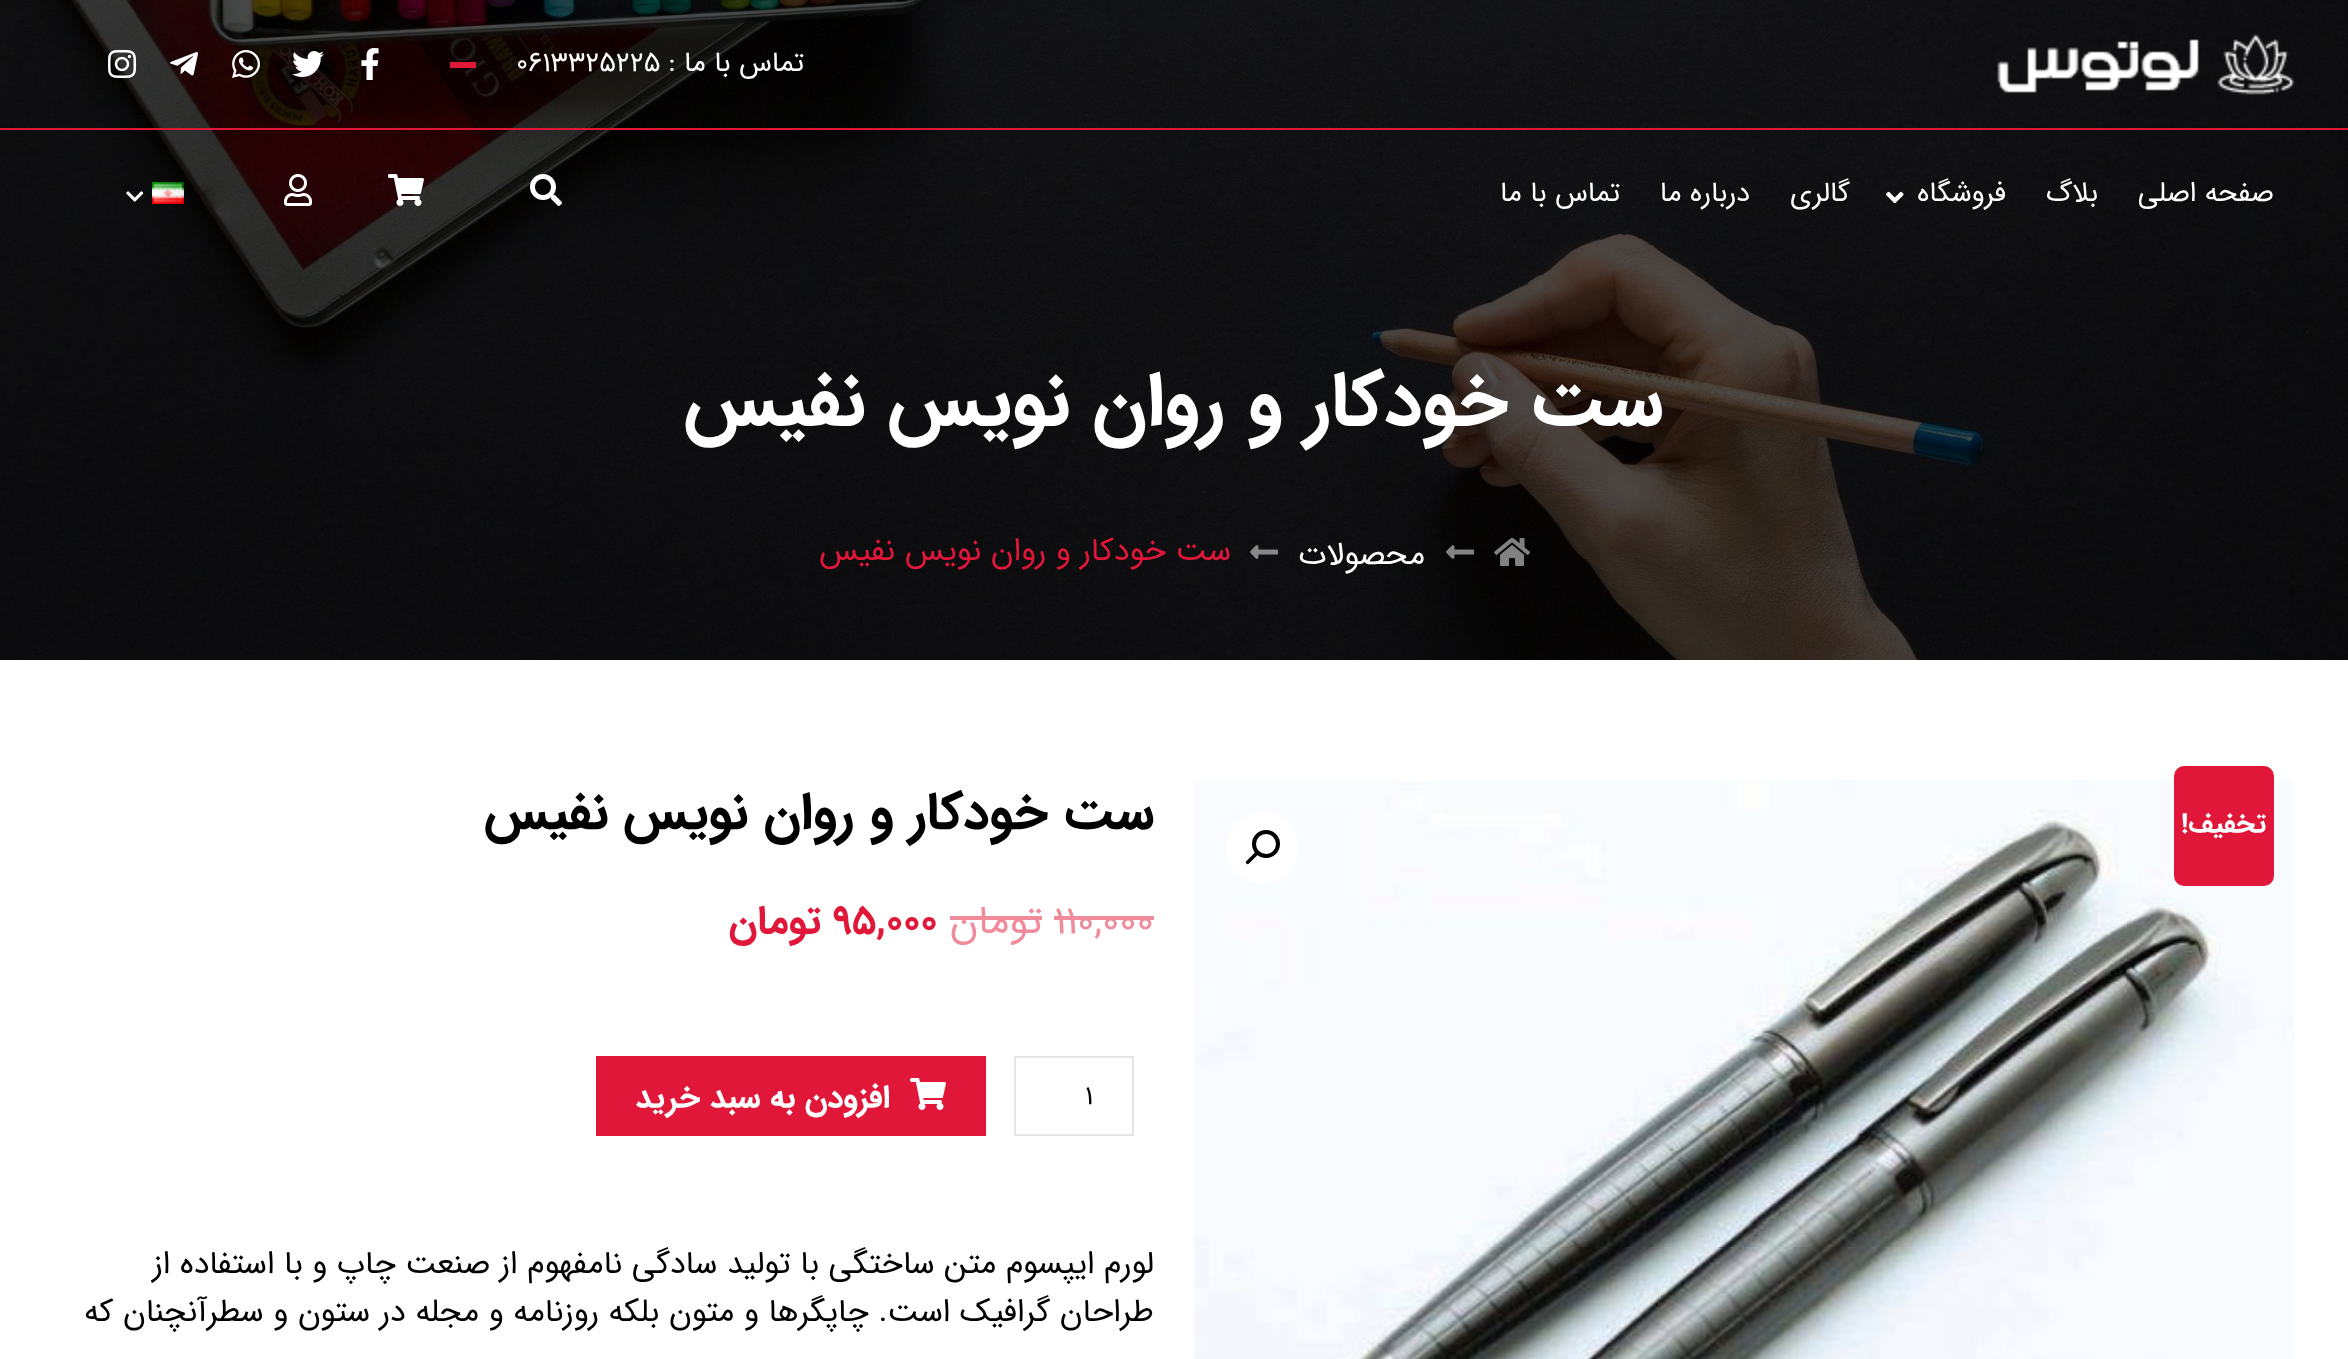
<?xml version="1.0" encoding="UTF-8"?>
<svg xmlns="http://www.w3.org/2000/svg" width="2348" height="1359">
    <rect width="100%" height="100%" fill="#FFFFFF"/>
    <image x="0" y="0" width="2348" height="660" href="img_13.png"/>
    <rect x="0" y="128" width="2348" height="2" fill="#E11739"/>
    <image x="1997" y="33" width="297" height="62" href="img_01.png"/>
    <text x="804" y="71" font-family="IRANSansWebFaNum" font-size="28" direction="rtl" fill="#FFFFFF">تماس با ما :</text>
    <text x="516" y="71" font-family="IRANSansWebFaNum" font-size="28" fill="#FFFFFF">0613325225</text>
    <rect x="450" y="62" width="26" height="6" fill="#E11739"/>
    <image x="361" y="48" width="18" height="32" href="img_02.png"/>
    <image x="292" y="51" width="32" height="26" href="img_03.png"/>
    <image x="232" y="50" width="28" height="28" href="img_04.png"/>
    <image x="170" y="52" width="28" height="24" href="img_05.png"/>
    <image x="108" y="49" width="29" height="29" href="img_06.png"/>
    <text x="2274" y="201" font-family="IRANSansWebFaNum" font-size="28" direction="rtl" fill="#FFFFFF">صفحه اصلی</text>
    <text x="2098" y="201" font-family="IRANSansWebFaNum" font-size="28" direction="rtl" fill="#FFFFFF">بلاگ</text>
    <text x="2006" y="201" font-family="IRANSansWebFaNum" font-size="28" direction="rtl" fill="#FFFFFF">فروشگاه</text>
    <image x="1886" y="191" width="18" height="13" href="img_07.png"/>
    <text x="1850" y="201" font-family="IRANSansWebFaNum" font-size="28" direction="rtl" fill="#FFFFFF">گالری</text>
    <text x="1750" y="201" font-family="IRANSansWebFaNum" font-size="28" direction="rtl" fill="#FFFFFF">درباره ما</text>
    <text x="1620" y="201" font-family="IRANSansWebFaNum" font-size="28" direction="rtl" fill="#FFFFFF">تماس با ما</text>
    <image x="530" y="174" width="32" height="32" href="img_08.png"/>
    <image x="388" y="174" width="36" height="32" href="img_09.png"/>
    <image x="284" y="174" width="28" height="32" href="img_10.png"/>
    <image x="152" y="182" width="32" height="22" href="img_11.png"/>
    <image x="126" y="191" width="18" height="11" href="img_12.png"/>
    <text x="1663" y="424" font-family="IRANSansWebFaNum" font-size="76" font-weight="700" direction="rtl" fill="#FFFFFF">ست خودکار و روان نویس نفیس</text>
    <image x="1494" y="538" width="36" height="28" href="img_14.png"/>
    <image x="1446" y="545" width="29" height="14" href="img_15.png"/>
    <text x="1425" y="564" font-family="IRANSansWebFaNum" font-size="32" direction="rtl" fill="#FFFFFF">محصولات</text>
    <image x="1250" y="545" width="29" height="14" href="img_16.png"/>
    <text x="1231" y="560" font-family="IRANSansWebFaNum" font-size="32" direction="rtl" fill="#E11739">ست خودکار و روان نویس نفیس</text>
    <image x="1194" y="780" width="1100" height="579" href="img_17.png"/>
    <circle cx="1262" cy="848" r="36" fill="#FFFFFF"/>
    <circle cx="1266" cy="844" r="12" fill="none" stroke="#000000" stroke-width="4"/>
    <path d="M 1257.5 852.5 C 1258.5 853 1258.5 854.5 1257.5 855 L 1249 863.5 C 1248.5 864.5 1247 864.5 1246.5 863.5 C 1245.5 863 1245.5 861.5 1246.5 861 L 1255 852.5 C 1255.5 851.5 1257 851.5 1257.5 852.5 Z" fill="#000000"/>
    <rect x="2174" y="766" width="100" height="120" rx="10" fill="#E11739"/>
    <text x="2266" y="832" font-family="IRANSansWebFaNum" font-size="27.5" font-weight="700" direction="rtl" fill="#FFFFFF">تخفیف!</text>
    <text x="1154" y="828" font-family="IRANSansWebFaNum" font-size="52" font-weight="700" direction="rtl" fill="#000000">ست خودکار و روان نویس نفیس</text>
    <text x="1054" y="933" font-family="IRANSansWebFaNum" font-size="40" fill="#F08B9C">110,000</text>
    <rect x="1054" y="916" width="100" height="4" fill="#F08B9C"/>
    <text x="1042" y="933" font-family="IRANSansWebFaNum" font-size="40" direction="rtl" fill="#F08B9C">تومان</text>
    <rect x="950" y="916" width="92" height="4" fill="#F08B9C"/>
    <text x="833" y="933" font-family="IRANSansWebFaNum" font-size="40" font-weight="700" fill="#E11739">95,000</text>
    <text x="821" y="933" font-family="IRANSansWebFaNum" font-size="40" font-weight="700" direction="rtl" fill="#E11739">تومان</text>
    <rect x="1015" y="1057" width="118" height="78" fill="none" stroke="#E5E5E5" stroke-width="2"/>
    <text x="1085" y="1104" font-family="IRANSansWebFaNum" font-size="27" fill="#000000">1</text>
    <rect x="596" y="1056" width="390" height="80" fill="#E11739"/>
    <image x="910" y="1078" width="36" height="32" href="img_18.png"/>
    <text x="890" y="1107" font-family="IRANSansWebFaNum" font-size="32" font-weight="700" direction="rtl" fill="#FFFFFF">افزودن به سبد خرید</text>
    <text font-family="IRANSansWebFaNum" font-size="32" direction="rtl" fill="#000000">
        <tspan x="1154" y="1273">لورم ایپسوم متن ساختگی با تولید سادگی نامفهوم از صنعت چاپ و با استفاده از</tspan>
        <tspan x="1154" y="1321">طراحان گرافیک است. چاپگرها و متون بلکه روزنامه و مجله در ستون و سطرآنچنان که</tspan>
    </text>
</svg>
